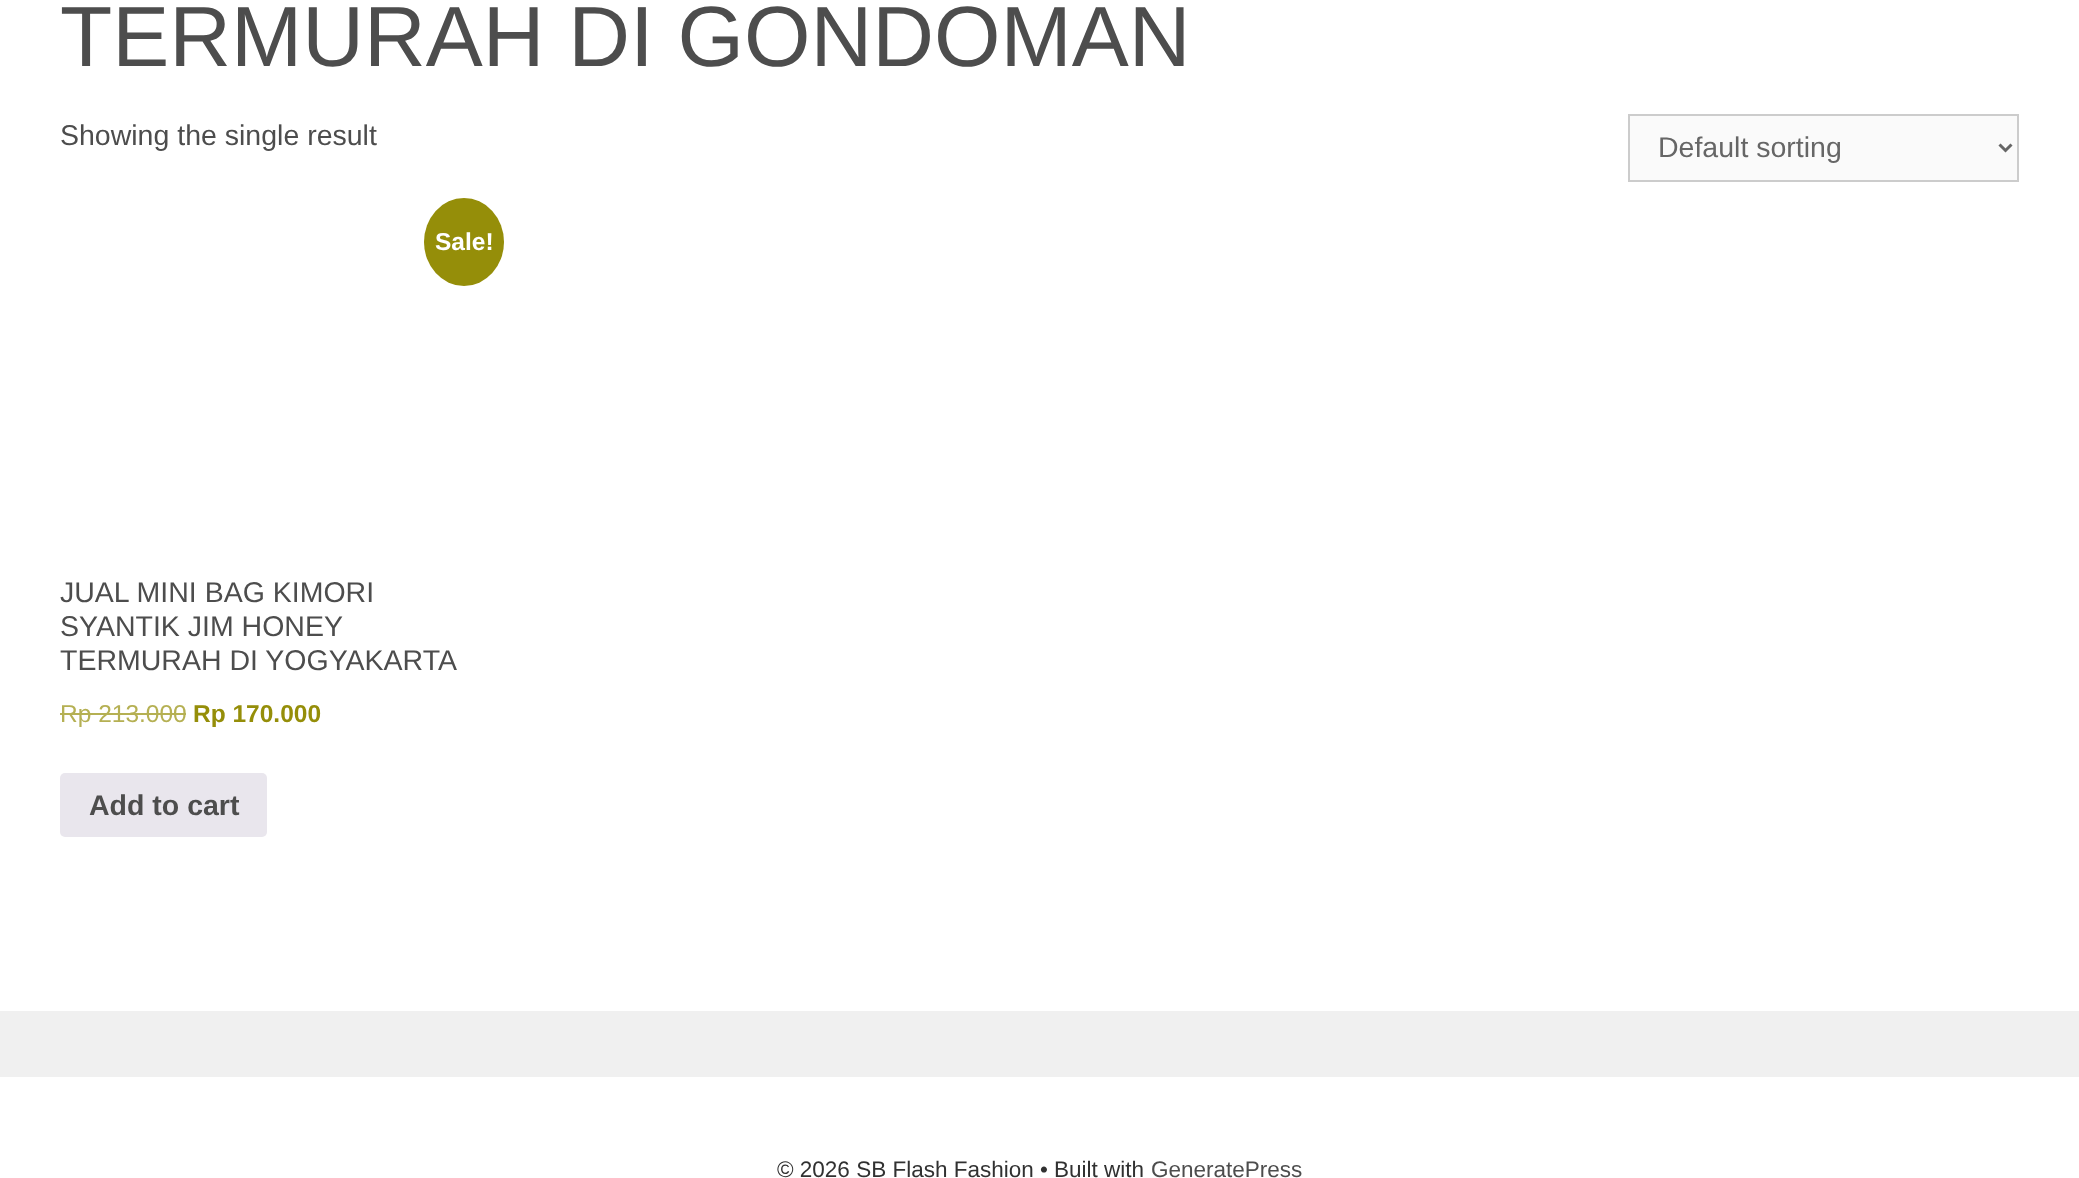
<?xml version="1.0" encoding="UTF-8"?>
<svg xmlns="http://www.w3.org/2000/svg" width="2079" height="1178">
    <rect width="100%" height="100%" fill="#F0F0F0"/>
    <rect x="0" y="0" width="2079" height="1011" fill="#FFFFFF"/>
    <text x="60" y="66" font-family="Liberation Sans" font-size="85.5" fill="#4D4D4D">TERMURAH DI GONDOMAN</text>
    <text x="60" y="145" font-family="Liberation Sans" font-size="28.5" fill="#4D4D4D">Showing the single result</text>
    <rect x="1629" y="115" width="389" height="66" fill="#FAFAFA" stroke="#CCCCCC" stroke-width="2"/>
    <path d="M 1999.5 144.5 L 2005.5 150.5 L 2011.5 144.5" fill="none" stroke="#666666" stroke-width="3"/>
    <text x="1658" y="157" font-family="Liberation Sans" font-size="28.5" fill="#666666">Default sorting</text>
    <ellipse cx="464" cy="242" rx="40" ry="44" fill="#958E09"/>
    <text x="435" y="250" font-family="Liberation Sans" font-size="24.5" font-weight="700" fill="#FFFFFF">Sale!</text>
    <text font-family="Liberation Sans" font-size="28.5" fill="#4D4D4D">
        <tspan x="60" y="602">JUAL MINI BAG KIMORI</tspan>
        <tspan x="60" y="636">SYANTIK JIM HONEY</tspan>
        <tspan x="60" y="670">TERMURAH DI YOGYAKARTA</tspan>
    </text>
    <text x="60" y="722" font-family="Liberation Sans" font-size="24.5" fill="#B5B053">Rp 213.000</text>
    <rect x="60" y="713" width="126" height="2" fill="#B5B053"/>
    <text x="193" y="722" font-family="Liberation Sans" font-size="24.5" font-weight="700" fill="#958E09">Rp 170.000</text>
    <rect x="60" y="773" width="207" height="64" rx="5" fill="#E9E6ED"/>
    <text x="89" y="815" font-family="Liberation Sans" font-size="28.5" font-weight="700" fill="#4D4D4D">Add to cart</text>
    <rect x="0" y="1077" width="2079" height="101" fill="#FFFFFF"/>
    <text x="777" y="1177" font-family="Liberation Sans" font-size="22.5" fill="#313131">© 2026 SB Flash Fashion • Built with</text>
    <text x="1151" y="1177" font-family="Liberation Sans" font-size="22.5" fill="#4D4D4D">GeneratePress</text>
</svg>
